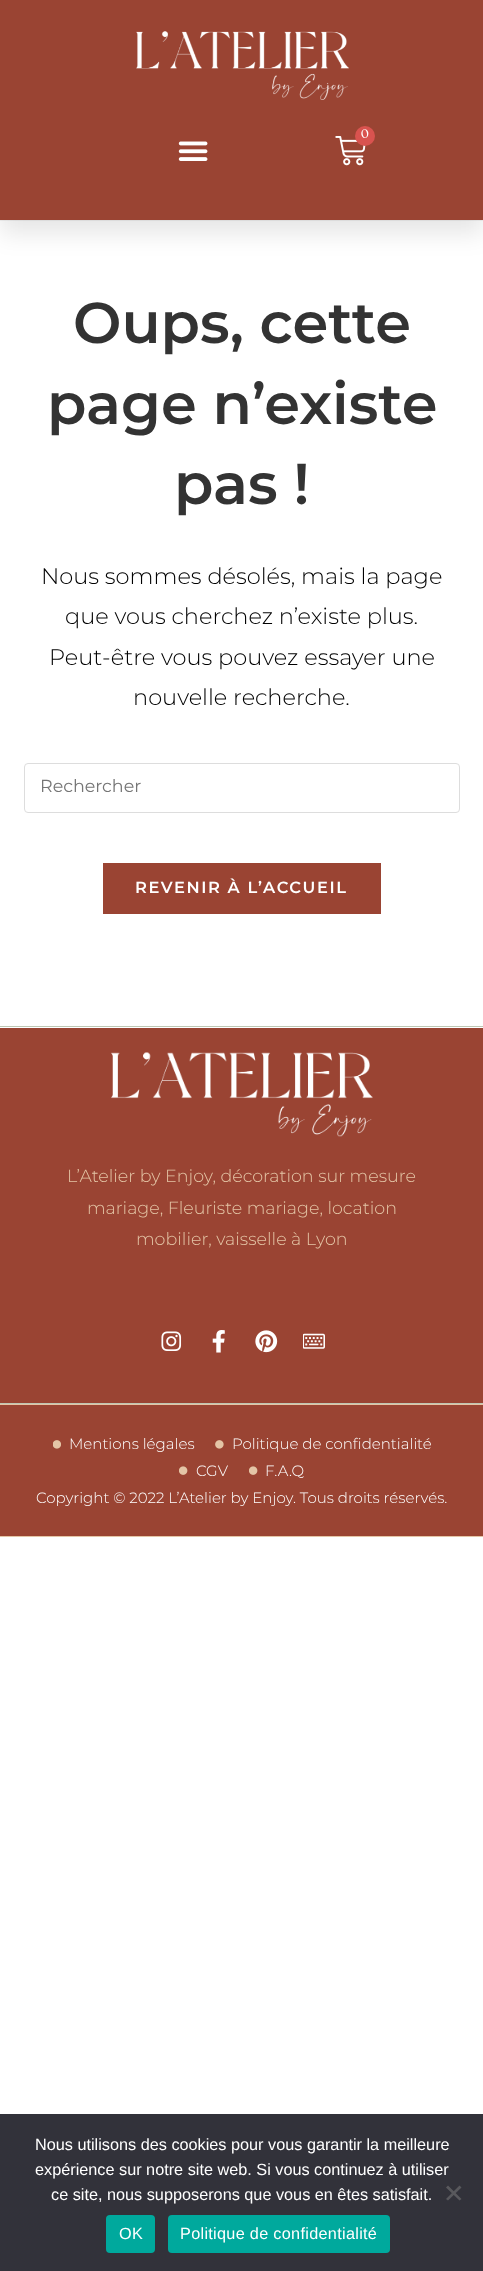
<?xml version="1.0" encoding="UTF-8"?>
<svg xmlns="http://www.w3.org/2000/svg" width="483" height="2271">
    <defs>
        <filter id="blur1" x="-50%" y="-200%" width="200%" height="500%"><feGaussianBlur stdDeviation="12.5"/></filter>
    </defs>
    <rect width="100%" height="100%" fill="#FFFFFF"/>
    <rect x="0" y="220" width="483" height="1" fill="#F1F1F1"/>
    <rect x="0" y="13" width="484" height="220" fill="#000000" fill-opacity="0.1" filter="url(#blur1)"/>
    <rect x="0" y="0" width="483" height="220" fill="#9A4433"/>
    <image x="136" y="31" width="213" height="69" href="img_01.png"/>
    <image x="335" y="136" width="31" height="30" href="img_02.png"/>
    <circle cx="365" cy="136" r="10" fill="#D9534F"/>
    <text x="361" y="138" font-family="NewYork" font-size="12" font-weight="700" fill="#FFFFFF">0</text>
    <image x="178" y="141" width="30" height="20" href="img_03.png"/>
    <text x="73" y="343" font-family="Montserrat" font-size="57.5" font-weight="600" fill="#333333">Oups, cette</text>
    <text x="47" y="424" font-family="Montserrat" font-size="57.5" font-weight="600" fill="#333333">page n’existe</text>
    <text x="174" y="504" font-family="Montserrat" font-size="57.5" font-weight="600" fill="#333333">pas !</text>
    <text x="41" y="584" font-family="Montserrat" font-size="22.5" font-weight="300" fill="#000000">Nous sommes désolés, mais la page</text>
    <text x="65" y="624" font-family="Montserrat" font-size="22.5" font-weight="300" fill="#000000">que vous cherchez n’existe plus.</text>
    <text x="49" y="665" font-family="Montserrat" font-size="22.5" font-weight="300" fill="#000000">Peut-être vous pouvez essayer une</text>
    <text x="133" y="705" font-family="Montserrat" font-size="22.5" font-weight="300" fill="#000000">nouvelle recherche.</text>
    <rect x="24.5" y="763.5" width="435" height="49" rx="3.5" fill="none" stroke="#DDDDDD"/>
    <text x="40" y="792" font-family="Montserrat" font-size="17.5" fill="#757575">Rechercher</text>
    <rect x="103" y="863" width="278" height="51" fill="#9A4433"/>
    <text x="135" y="893" font-family="Montserrat" font-size="16.25" font-weight="600" letter-spacing="1.6" fill="#FFFFFF">REVENIR À L’ACCUEIL</text>
    <rect x="0" y="1028" width="483" height="375" fill="#9A4433"/>
    <rect x="0" y="1026" width="483" height="1" fill="#BEC7B4"/>
    <rect x="0" y="1403" width="483" height="1" fill="#BEC7B4"/>
    <image x="111" y="1052" width="262" height="85" href="img_04.png"/>
    <text x="67" y="1182" font-family="Montserrat" font-size="17.5" font-weight="300" fill="#E4C5A6">L’Atelier by Enjoy, décoration sur mesure</text>
    <text x="87" y="1214" font-family="Montserrat" font-size="17.5" font-weight="300" fill="#E4C5A6">mariage, Fleuriste mariage, location</text>
    <text x="136" y="1245" font-family="Montserrat" font-size="17.5" font-weight="300" fill="#E4C5A6">mobilier, vaisselle à Lyon</text>
    <image x="161" y="1331" width="21" height="20" href="img_05.png"/>
    <image x="212" y="1330" width="13" height="23" href="img_06.png"/>
    <image x="255" y="1330" width="23" height="23" href="img_07.png"/>
    <image x="303" y="1333" width="22" height="16" href="img_08.png"/>
    <rect x="0" y="1405" width="483" height="131" fill="#9A4433"/>
    <rect x="0" y="1404" width="483" height="1" fill="#E4C5A6"/>
    <rect x="0" y="1536" width="483" height="1" fill="#E4C5A6"/>
    <image x="53" y="1440" width="8" height="9" href="img_09.png"/>
    <text x="69" y="1449" font-family="Montserrat" font-size="15" font-weight="300" fill="#FFFFFF">Mentions légales</text>
    <image x="215" y="1440" width="9" height="9" href="img_10.png"/>
    <text x="232" y="1449" font-family="Montserrat" font-size="15" font-weight="300" fill="#FFFFFF">Politique de confidentialité</text>
    <image x="179" y="1466" width="9" height="9" href="img_11.png"/>
    <text x="196" y="1476" font-family="Montserrat" font-size="15" font-weight="300" fill="#FFFFFF">CGV</text>
    <image x="249" y="1466" width="9" height="9" href="img_11.png"/>
    <text x="265" y="1476" font-family="Montserrat" font-size="15" font-weight="300" fill="#FFFFFF">F.A.Q</text>
    <text x="36" y="1503" font-family="Montserrat" font-size="15" font-weight="300" fill="#FFFFFF">Copyright © 2022 L’Atelier by Enjoy. Tous droits réservés.</text>
    <rect x="0" y="2114" width="483" height="157" fill="#32323A"/>
    <text font-family="Liberation Sans" font-size="16.25" fill="#FFFFFF">
        <tspan x="35" y="2150">Nous utilisons des cookies pour vous garantir la meilleure</tspan>
        <tspan x="35" y="2175">expérience sur notre site web. Si vous continuez à utiliser</tspan>
    </text>
    <text x="51" y="2200" font-family="Liberation Sans" font-size="16.25" fill="#FFFFFF">ce site, nous supposerons que vous en êtes satisfait.</text>
    <path d="M 459.5 2185.5 L 461.5 2187.5 L 448 2200.5 L 446 2199 Z" fill="#59595D"/>
    <path d="M 446 2187.5 L 448 2185.5 L 461.5 2199 L 459.5 2200.5 Z" fill="#59595D"/>
    <rect x="106" y="2215" width="49" height="38" rx="4" fill="#00A99D"/>
    <text x="119" y="2239" font-family="Liberation Sans" font-size="16.25" letter-spacing="0.3" fill="#FFFFFF">OK</text>
    <rect x="168" y="2215" width="222" height="38" rx="4" fill="#00A99D"/>
    <text x="180" y="2239" font-family="Liberation Sans" font-size="16.25" letter-spacing="0.3" fill="#FFFFFF">Politique de confidentialité</text>
</svg>
